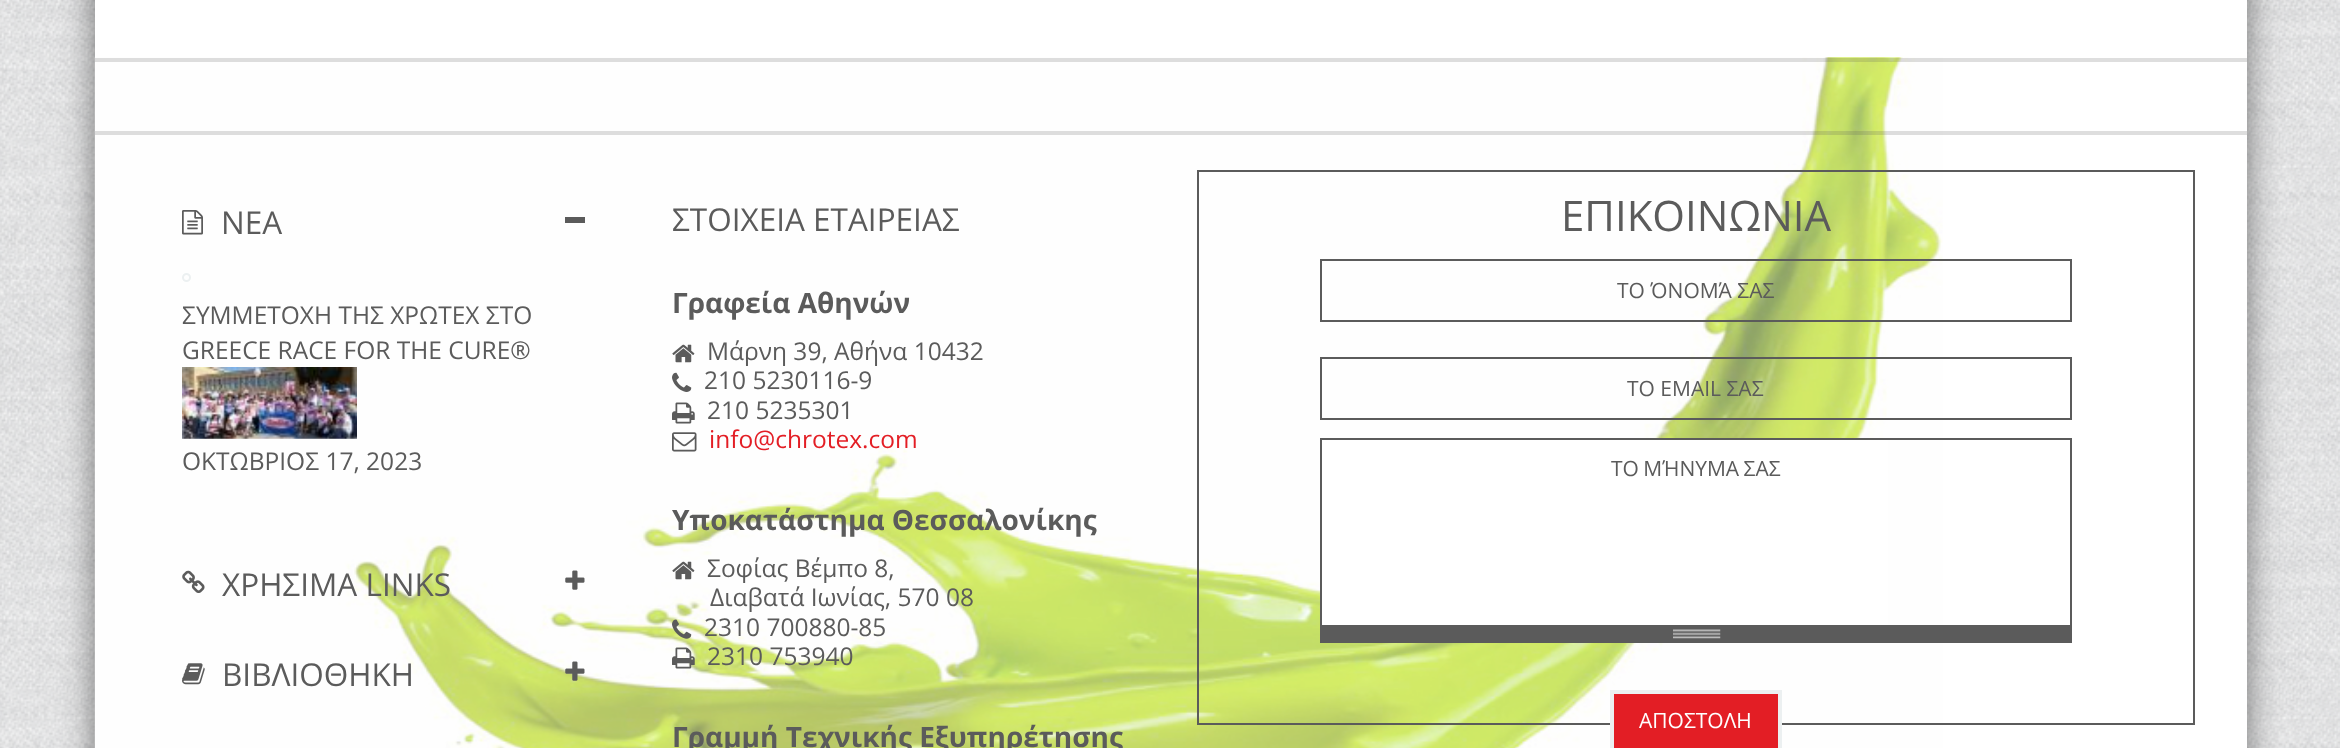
<?xml version="1.0" encoding="UTF-8"?>
<svg xmlns="http://www.w3.org/2000/svg" width="2340" height="748">
    <defs>
        <filter id="blur1" x="-50%" y="-200%" width="200%" height="500%"><feGaussianBlur stdDeviation="17.5"/></filter>
    </defs>
    <rect width="100%" height="100%" fill="#FFFFFF"/>
    <image x="0" y="0" width="2340" height="748" href="img_01.png"/>
    <rect x="95" y="-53" width="2152" height="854" fill="#000000" fill-opacity="0.5" filter="url(#blur1)"/>
    <rect x="95" y="0" width="2152" height="748" fill="#FFFFFF"/>
    <image x="94" y="57" width="1849" height="691" href="img_02.png"/>
    <rect x="95" y="58" width="2152" height="4" fill="#5B5B5B" fill-opacity="0.2"/>
    <rect x="95" y="131" width="2152" height="4" fill="#5B5B5B" fill-opacity="0.2"/>
    <image x="182" y="210" width="21" height="25" href="img_03.png"/>
    <text x="221" y="234" font-family="Open Sans" font-size="31.5" fill="#5B5B5B">ΝΕΑ</text>
    <rect x="565" y="217" width="20" height="6" fill="#5B5B5B"/>
    <circle cx="186.5" cy="277.5" r="3.5" fill="none" stroke="#ECF0F1" stroke-width="2"/>
    <text font-family="Open Sans" font-size="24.5" fill="#5B5B5B">
        <tspan x="182" y="324">ΣΥΜΜΕΤΟΧΗ ΤΗΣ ΧΡΩΤΕΧ ΣΤΟ</tspan>
        <tspan x="182" y="359">GREECE RACE FOR THE CURE®</tspan>
    </text>
    <image x="182" y="367" width="175" height="72" href="img_04.png"/>
    <text x="182" y="470" font-family="Open Sans" font-size="24.5" fill="#5B5B5B">ΟΚΤΩΒΡΙΟΣ 17, 2023</text>
    <image x="182" y="570" width="23" height="23" href="img_05.png"/>
    <text x="222" y="596" font-family="Open Sans" font-size="31.5" fill="#5B5B5B">ΧΡΗΣΙΜΑ LINKS</text>
    <image x="565" y="570" width="20" height="20" href="img_06.png"/>
    <image x="182" y="663" width="23" height="22" href="img_07.png"/>
    <text x="222" y="686" font-family="Open Sans" font-size="31.5" fill="#5B5B5B">ΒΙΒΛΙΟΘΗΚΗ</text>
    <image x="565" y="661" width="20" height="20" href="img_08.png"/>
    <text x="672" y="231" font-family="Open Sans" font-size="31.5" fill="#5B5B5B">ΣΤΟΙΧΕΙΑ ΕΤΑΙΡΕΙΑΣ</text>
    <text x="672" y="313" font-family="Open Sans" font-size="28" font-weight="700" fill="#5B5B5B">Γραφεία Αθηνών</text>
    <image x="672" y="344" width="23" height="19" href="img_09.png"/>
    <text x="707" y="360" font-family="Open Sans" font-size="24.5" fill="#5B5B5B">Μάρνη 39, Αθήνα 10432</text>
    <image x="672" y="372" width="20" height="20" href="img_10.png"/>
    <text x="704" y="389" font-family="Open Sans" font-size="24.5" fill="#5B5B5B">210 5230116-9</text>
    <image x="672" y="402" width="23" height="22" href="img_11.png"/>
    <text x="707" y="419" font-family="Open Sans" font-size="24.5" fill="#5B5B5B">210 5235301</text>
    <image x="672" y="432" width="25" height="20" href="img_12.png"/>
    <text x="709" y="448" font-family="Open Sans" font-size="24.5" fill="#E31E25">info@chrotex.com</text>
    <text x="672" y="530" font-family="Open Sans" font-size="28" font-weight="700" fill="#5B5B5B">Υποκατάστημα Θεσσαλονίκης</text>
    <image x="672" y="561" width="23" height="19" href="img_09.png"/>
    <text x="707" y="577" font-family="Open Sans" font-size="24.5" fill="#5B5B5B">Σοφίας Βέμπο 8,</text>
    <text x="710" y="606" font-family="Open Sans" font-size="24.5" fill="#5B5B5B">Διαβατά Ιωνίας, 570 08</text>
    <image x="672" y="619" width="20" height="20" href="img_13.png"/>
    <text x="704" y="636" font-family="Open Sans" font-size="24.5" fill="#5B5B5B">2310 700880-85</text>
    <image x="672" y="647" width="23" height="22" href="img_14.png"/>
    <text x="707" y="665" font-family="Open Sans" font-size="24.5" fill="#5B5B5B">2310 753940</text>
    <text x="672" y="747" font-family="Open Sans" font-size="28" font-weight="700" fill="#5B5B5B">Γραμμή Τεχνικής Εξυπηρέτησης</text>
    <rect x="1198" y="171" width="996" height="553" fill="none" stroke="#5B5B5B" stroke-width="2"/>
    <text x="1561" y="231" font-family="Open Sans" font-size="42" fill="#5B5B5B">ΕΠΙΚΟΙΝΩΝΙΑ</text>
    <rect x="1321" y="260" width="750" height="61" fill="none" stroke="#5B5B5B" stroke-width="2"/>
    <text x="1617" y="298" font-family="Open Sans" font-size="21" fill="#5B5B5B">ΤΟ ΌΝΟΜΆ ΣΑΣ</text>
    <rect x="1321" y="358" width="750" height="61" fill="none" stroke="#5B5B5B" stroke-width="2"/>
    <text x="1627" y="396" font-family="Open Sans" font-size="21" fill="#5B5B5B">ΤΟ EMAIL ΣΑΣ</text>
    <rect x="1322" y="440" width="566" height="185" fill="#FFFFFF"/>
    <rect x="1321" y="439" width="750" height="187" fill="none" stroke="#5B5B5B" stroke-width="2"/>
    <text x="1611" y="476" word-spacing="-1" font-family="Open Sans" font-size="21" fill="#5B5B5B">ΤΟ ΜΉΝΥΜΑ ΣΑΣ</text>
    <rect x="1322" y="627" width="748" height="14" fill="#5B5B5B"/>
    <image x="1673" y="629" width="48" height="10" href="img_15.png"/>
    <rect x="2070" y="627" width="2" height="15" fill="#5B5B5B"/>
    <rect x="1320" y="641" width="752" height="2" fill="#5B5B5B"/>
    <rect x="1320" y="627" width="2" height="15" fill="#5B5B5B"/>
    <rect x="1612" y="692" width="168" height="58" fill="#E31E25" stroke="#ECF0F1" stroke-width="4"/>
    <text x="1639" y="728" font-family="Open Sans" font-size="21" fill="#FFFFFF">ΑΠΟΣΤΟΛΗ</text>
</svg>
